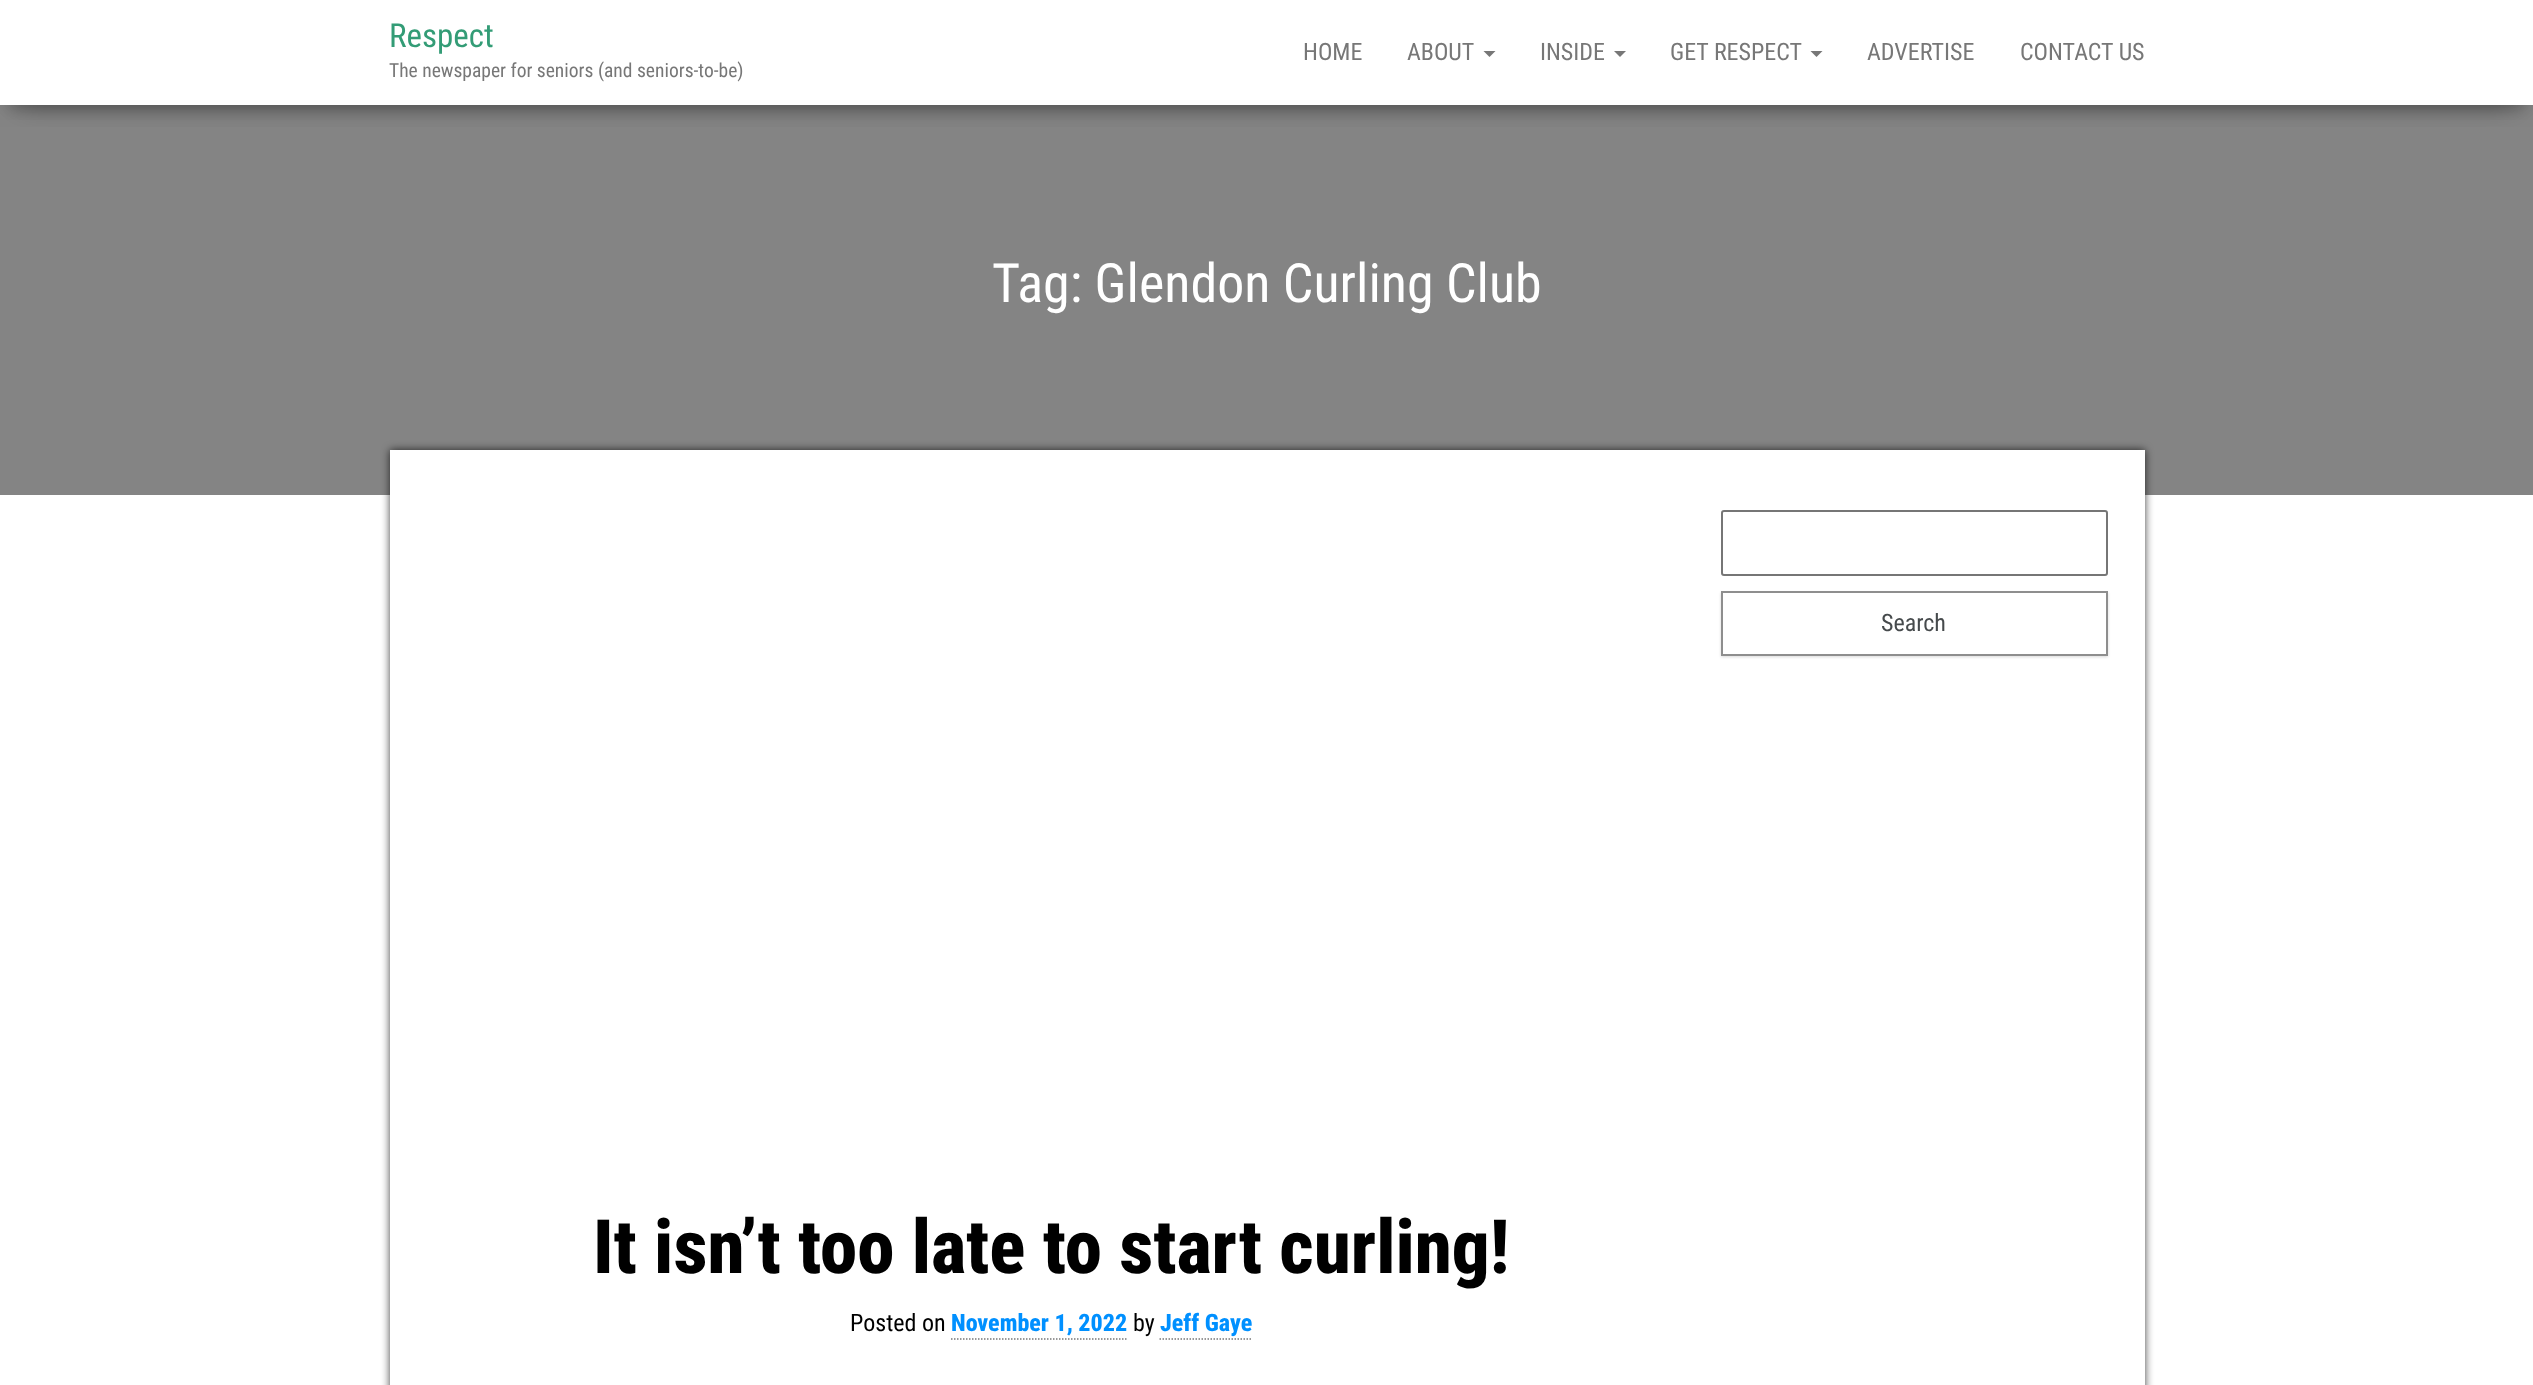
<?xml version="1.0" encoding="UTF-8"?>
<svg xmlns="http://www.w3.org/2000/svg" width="2533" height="1385">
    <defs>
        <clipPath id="clip1"><rect x="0" y="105" width="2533" height="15"/></clipPath>
        <filter id="blur1" x="-50%" y="-200%" width="200%" height="500%"><feGaussianBlur stdDeviation="7.5"/></filter>
        <clipPath id="clip2"><rect x="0" y="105" width="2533" height="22"/></clipPath>
        <filter id="blur2" x="-50%" y="-200%" width="200%" height="500%"><feGaussianBlur stdDeviation="15"/></filter>
        <filter id="blur3" x="-50%" y="-200%" width="200%" height="500%"><feGaussianBlur stdDeviation="4"/></filter>
        <filter id="blur4" x="-50%" y="-200%" width="200%" height="500%"><feGaussianBlur stdDeviation="1.5"/></filter>
    </defs>
    <rect width="100%" height="100%" fill="#FFFFFF"/>
    <rect x="0" y="105" width="2533" height="390" fill="#848484"/>
    <g clip-path="url(#clip1)">
        <rect x="8" y="20" width="2518" height="90" fill="#000000" fill-opacity="0.2" filter="url(#blur1)"/>
    </g>
    <g clip-path="url(#clip2)">
        <rect x="18" y="33" width="2498" height="69" fill="#000000" fill-opacity="0.42" filter="url(#blur2)"/>
    </g>
    <text x="389" y="47" font-family="Roboto Condensed" font-size="33" fill="#339C76">Respect</text>
    <text x="389" y="77" font-family="Roboto Condensed" font-size="19.5" fill="#777777">The newspaper for seniors (and seniors-to-be)</text>
    <text x="1303" y="60" font-family="Roboto Condensed" font-size="24" fill="#777777">HOME</text>
    <text x="1407" y="60" font-family="Roboto Condensed" font-size="24" fill="#777777">ABOUT</text>
    <path d="M 1483.5 51 H 1495.5 L 1489.5 57 Z" fill="#777777"/>
    <text x="1540" y="60" font-family="Roboto Condensed" font-size="24" fill="#777777">INSIDE</text>
    <path d="M 1614 51 H 1626 L 1620 57 Z" fill="#777777"/>
    <text x="1670" y="60" font-family="Roboto Condensed" font-size="24" fill="#777777">GET RESPECT</text>
    <path d="M 1810.5 51 H 1822.5 L 1816.5 57 Z" fill="#777777"/>
    <text x="1867" y="60" font-family="Roboto Condensed" font-size="24" fill="#777777">ADVERTISE</text>
    <text x="2020" y="60" font-family="Roboto Condensed" font-size="24" fill="#777777">CONTACT US</text>
    <text x="992" y="302" font-family="Roboto Condensed" font-size="54" fill="#FFFFFF">Tag: Glendon Curling Club</text>
    <rect x="390" y="450" width="1755" height="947" fill="#000000" fill-opacity="0.75" filter="url(#blur3)"/>
    <rect x="390" y="450" width="1755" height="935" fill="#FFFFFF"/>
    <rect x="1722" y="511" width="385" height="64" rx="2" fill="none" stroke="#767676" stroke-width="2"/>
    <rect x="1721" y="593" width="387" height="64" fill="#000000" fill-opacity="0.15" filter="url(#blur4)"/>
    <rect x="1722" y="592" width="385" height="63" fill="#FFFFFF" stroke="#8E8E8E" stroke-width="2"/>
    <text x="1881" y="631" font-family="Roboto Condensed" font-size="24" fill="#464A4C">Search</text>
    <text x="593" y="1273" font-family="Roboto Condensed" font-size="75" font-weight="800" fill="#000000">It isn’t too late to start curling!</text>
    <text x="850" y="1331" font-family="Roboto Condensed" font-size="24" fill="#000000">Posted on</text>
    <text x="951" y="1331" font-family="Roboto Condensed" font-size="24" font-weight="800" fill="#0090FF">November 1, 2022</text>
    <path d="M 951 1339 H 1128" fill="none" stroke="#777777" stroke-width="1.5" stroke-dasharray="1.5 1.5"/>
    <text x="1133" y="1331" font-family="Roboto Condensed" font-size="24" fill="#000000">by</text>
    <text x="1160" y="1331" font-family="Roboto Condensed" font-size="24" font-weight="800" fill="#0090FF">Jeff Gaye</text>
    <path d="M 1159.5 1339 H 1252.5" fill="none" stroke="#777777" stroke-width="1.5" stroke-dasharray="1.5 1.5"/>
</svg>
